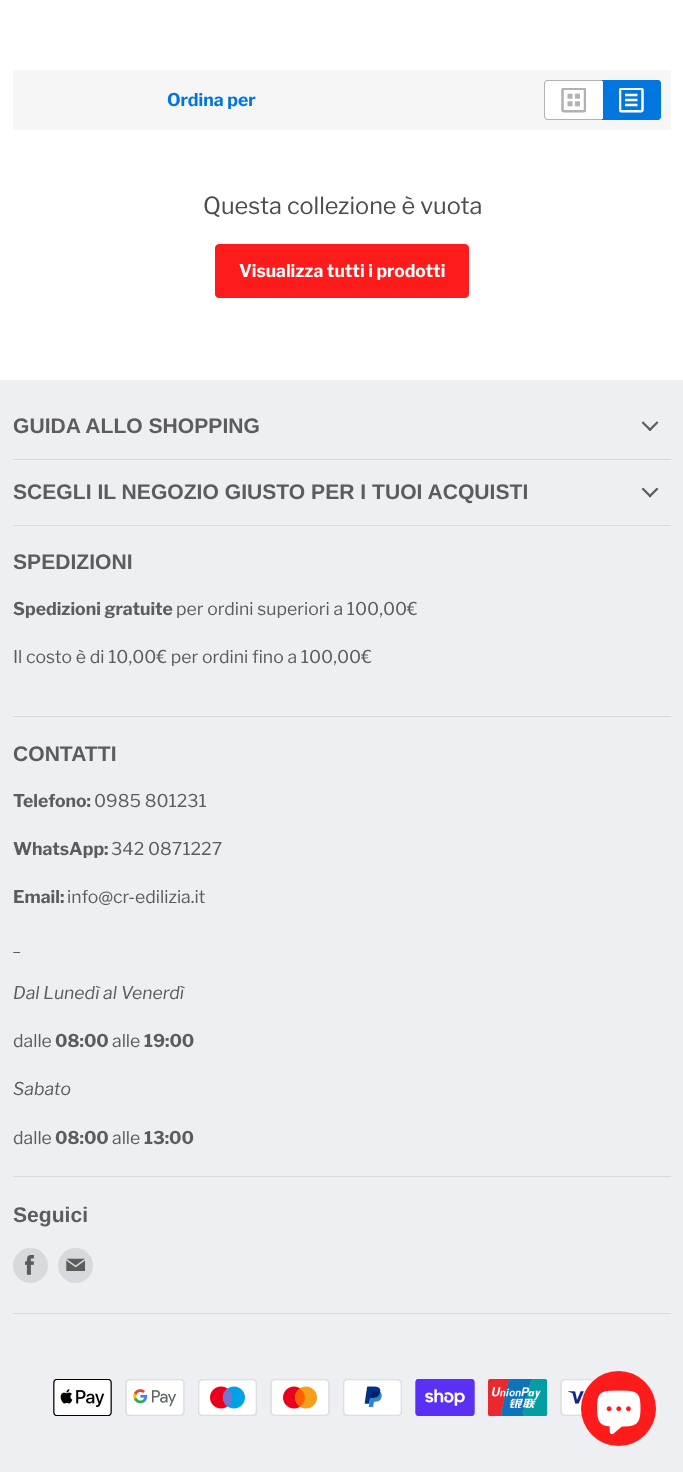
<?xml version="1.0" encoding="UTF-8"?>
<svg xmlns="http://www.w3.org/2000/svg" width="683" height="1472">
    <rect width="100%" height="100%" fill="#FFFFFF"/>
    <rect x="13" y="70" width="658" height="60" fill="#F6F6F6"/>
    <text x="167" y="106" font-family="Libre Franklin" font-size="17.6" font-weight="700" fill="#0076DE">Ordina per</text>
    <path d="M 548 80 H 603 V 120 H 548 C 546 120 544 118 544 116 V 84 C 544 82 546 80 548 80 Z" fill="#FFFFFF"/>
    <path d="M 548 80 H 602 V 120 H 548 C 545 120 544 118 544 116 V 84 C 544 82 545 80 548 80 Z M 548 81 H 602 V 119 H 548 C 546 119 545 118 545 116 V 84 C 545 82 546 81 548 81 Z" fill="#B2B2B2" fill-rule="evenodd"/>
    <image x="561" y="88" width="25" height="25" href="img_01.png"/>
    <path d="M 603 80 H 657 C 659 80 661 82 661 84 V 116 C 661 118 659 120 657 120 H 603 Z" fill="#0076DE"/>
    <path d="M 602 80 H 658 C 660 80 661 82 661 84 V 116 C 661 118 660 120 658 120 H 602 Z M 602 81 H 658 C 659 81 660 82 660 84 V 116 C 660 118 659 119 658 119 H 602 Z" fill="#0076DE" fill-rule="evenodd"/>
    <image x="619" y="88" width="25" height="25" href="img_02.png"/>
    <text x="203" y="214" font-family="Libre Franklin" font-size="23.5" fill="#4C4C4C">Questa collezione è vuota</text>
    <rect x="215.5" y="244.5" width="253" height="53" rx="3.5" fill="#FE1B1B" stroke="#FE1B1B"/>
    <text x="239" y="277" font-family="Libre Franklin" font-size="17.5" font-weight="700" fill="#FFFFFF">Visualizza tutti i prodotti</text>
    <rect x="0" y="380" width="683" height="1092" fill="#EDEFF3"/>
    <rect x="13" y="459" width="658" height="1" fill="#D7D9DC"/>
    <text x="13" y="433" font-family="Arimo" font-size="21.1" font-weight="700" fill="#5C5C5C">GUIDA ALLO SHOPPING</text>
    <image x="641" y="421" width="18" height="10" href="img_03.png"/>
    <rect x="13" y="525" width="658" height="1" fill="#D7D9DC"/>
    <text x="13" y="499" font-family="Arimo" font-size="21.1" font-weight="700" fill="#5C5C5C">SCEGLI IL NEGOZIO GIUSTO PER I TUOI ACQUISTI</text>
    <image x="641" y="488" width="18" height="10" href="img_04.png"/>
    <rect x="13" y="716" width="658" height="1" fill="#D7D9DC"/>
    <text x="13" y="569" font-family="Arimo" font-size="21.1" font-weight="700" fill="#5C5C5C">SPEDIZIONI</text>
    <text x="13" y="615" font-family="Libre Franklin" font-size="17.6" font-weight="700" fill="#5C5C5C">Spedizioni gratuite</text>
    <text x="176" y="615" font-family="Libre Franklin" font-size="17.6" fill="#5C5C5C">per ordini superiori a 100,00€</text>
    <text x="13" y="663" font-family="Libre Franklin" font-size="17.6" fill="#5C5C5C">Il costo è di 10,00€ per ordini fino a 100,00€</text>
    <rect x="13" y="1176" width="658" height="1" fill="#D7D9DC"/>
    <text x="13" y="761" font-family="Arimo" font-size="21.1" font-weight="700" fill="#5C5C5C">CONTATTI</text>
    <text x="13" y="807" font-family="Libre Franklin" font-size="17.6" font-weight="700" fill="#5C5C5C">Telefono:</text>
    <text x="94" y="807" font-family="Libre Franklin" font-size="17.6" fill="#5C5C5C">0985 801231</text>
    <text x="13" y="855" font-family="Libre Franklin" font-size="17.6" font-weight="700" fill="#5C5C5C">WhatsApp:</text>
    <text x="111" y="855" font-family="Libre Franklin" font-size="17.6" fill="#5C5C5C">342 0871227</text>
    <text x="13" y="903" font-family="Libre Franklin" font-size="17.6" font-weight="700" fill="#5C5C5C">Email:</text>
    <text x="67" y="903" font-family="Libre Franklin" font-size="17.6" fill="#5C5C5C">info@cr-edilizia.it</text>
    <text x="13" y="951" font-family="Libre Franklin" font-size="17.6" font-style="italic" fill="#5C5C5C">_</text>
    <text x="13" y="999" font-family="Libre Franklin" font-size="17.6" font-style="italic" fill="#5C5C5C">Dal Lunedì al Venerdì</text>
    <text x="13" y="1047" font-family="Libre Franklin" font-size="17.6" fill="#5C5C5C">dalle</text>
    <text x="55" y="1047" font-family="Libre Franklin" font-size="17.6" font-weight="700" fill="#5C5C5C">08:00</text>
    <text x="112" y="1047" font-family="Libre Franklin" font-size="17.6" fill="#5C5C5C">alle</text>
    <text x="144" y="1047" font-family="Libre Franklin" font-size="17.6" font-weight="700" fill="#5C5C5C">19:00</text>
    <text x="13" y="1095" font-family="Libre Franklin" font-size="17.6" font-style="italic" fill="#5C5C5C">Sabato</text>
    <text x="13" y="1144" font-family="Libre Franklin" font-size="17.6" fill="#5C5C5C">dalle</text>
    <text x="55" y="1144" font-family="Libre Franklin" font-size="17.6" font-weight="700" fill="#5C5C5C">08:00</text>
    <text x="112" y="1144" font-family="Libre Franklin" font-size="17.6" fill="#5C5C5C">alle</text>
    <text x="144" y="1144" font-family="Libre Franklin" font-size="17.6" font-weight="700" fill="#5C5C5C">13:00</text>
    <rect x="13" y="1313" width="658" height="1" fill="#D7D9DC"/>
    <text x="13" y="1222" font-family="Arimo" font-size="21.1" font-weight="700" fill="#5C5C5C">Seguici</text>
    <circle cx="30.5" cy="1265.5" r="17.5" fill="#D7D9DC"/>
    <image x="25" y="1255" width="9" height="20" href="img_05.png"/>
    <circle cx="75.5" cy="1265.5" r="17.5" fill="#D7D9DC"/>
    <image x="66" y="1258" width="19" height="13" href="img_06.png"/>
    <image x="53" y="1379" width="59" height="37" href="img_07.png"/>
    <image x="125" y="1379" width="60" height="37" href="img_08.png"/>
    <image x="198" y="1379" width="59" height="37" href="img_09.png"/>
    <image x="270" y="1379" width="60" height="37" href="img_10.png"/>
    <image x="343" y="1379" width="59" height="37" href="img_11.png"/>
    <image x="415" y="1379" width="60" height="37" href="img_12.png"/>
    <image x="488" y="1379" width="60" height="37" href="img_13.png"/>
    <image x="560" y="1379" width="36" height="37" href="img_14.png"/>
    <circle cx="618.5" cy="1408.5" r="37.5" fill="#FE1B1B"/>
    <image x="597" y="1390" width="44" height="45" href="img_15.png"/>
</svg>
